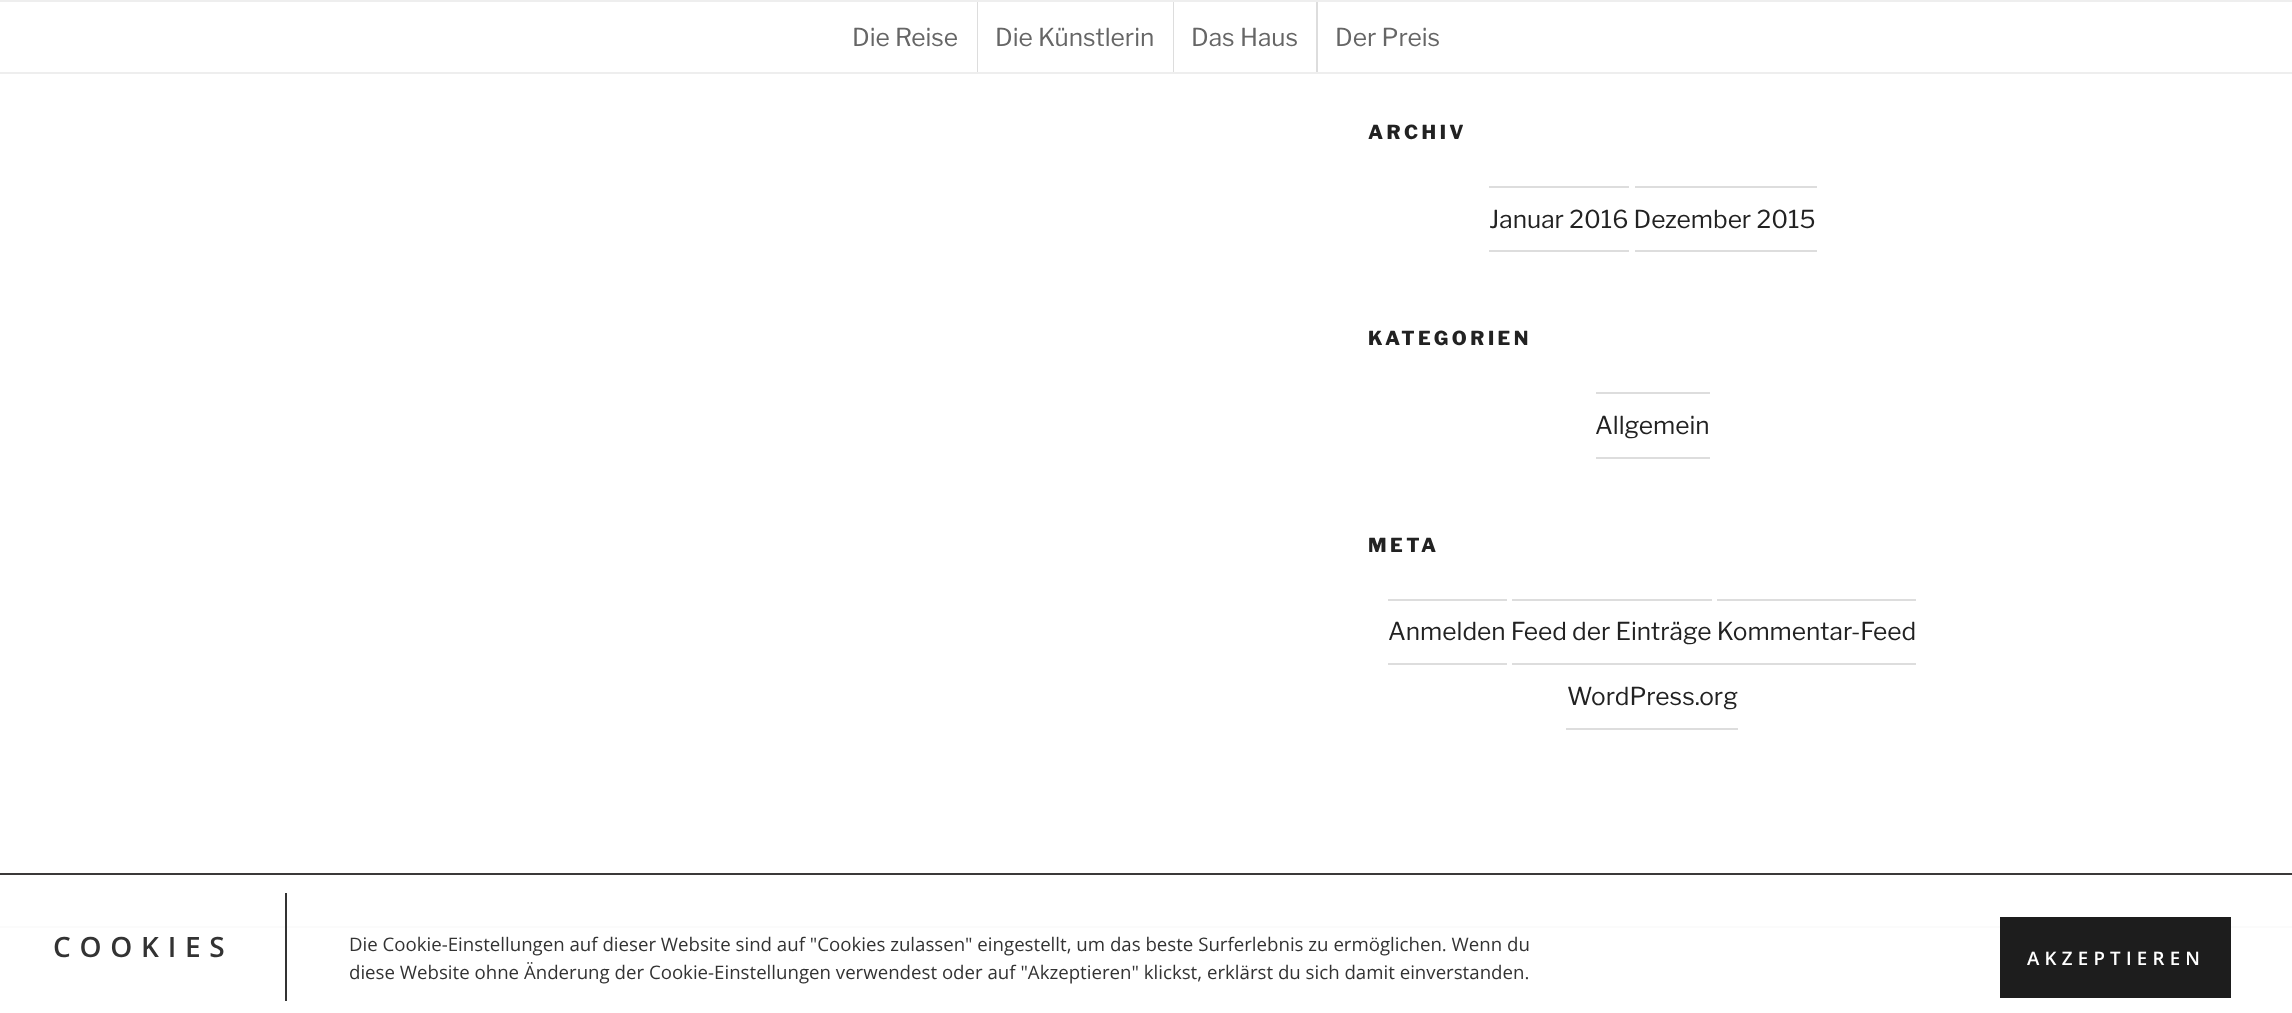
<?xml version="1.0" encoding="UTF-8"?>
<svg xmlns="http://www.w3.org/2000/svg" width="2292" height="1013">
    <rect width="100%" height="100%" fill="#FFFFFF"/>
    <rect x="0" y="0" width="2292" height="2" fill="#EEEEEE"/>
    <rect x="0" y="72" width="2292" height="2" fill="#EEEEEE"/>
    <text x="852" y="46" font-family="'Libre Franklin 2'" font-size="24.5" font-weight="100" fill="#666666">Die Reise</text>
    <rect x="977" y="2" width="1" height="70" fill="#DDDDDD"/>
    <text x="995" y="46" font-family="'Libre Franklin 2'" font-size="24.5" font-weight="100" fill="#666666">Die Künstlerin</text>
    <rect x="1173" y="2" width="1" height="70" fill="#DDDDDD"/>
    <text x="1191" y="46" font-family="'Libre Franklin 2'" font-size="24.5" font-weight="100" fill="#666666">Das Haus</text>
    <rect x="1316" y="2" width="2" height="70" fill="#DDDDDD"/>
    <text x="1335" y="46" font-family="'Libre Franklin 2'" font-size="24.5" font-weight="100" fill="#666666">Der Preis</text>
    <text x="1368" y="139" font-family="Libre Franklin" font-size="19.25" font-weight="100" letter-spacing="3.5" fill="#222222">ARCHIV</text>
    <rect x="1635" y="186" width="182" height="2" fill="#DDDDDD"/>
    <rect x="1635" y="250" width="182" height="2" fill="#DDDDDD"/>
    <rect x="1489" y="186" width="140" height="2" fill="#DDDDDD"/>
    <rect x="1489" y="250" width="140" height="2" fill="#DDDDDD"/>
    <text x="1489" y="228" font-family="'Libre Franklin 2'" font-size="24.5" font-weight="100" fill="#222222">Januar 2016 Dezember 2015</text>
    <text x="1368" y="345" font-family="Libre Franklin" font-size="19.25" font-weight="100" letter-spacing="3.5" fill="#222222">KATEGORIEN</text>
    <rect x="1596" y="392" width="114" height="2" fill="#DDDDDD"/>
    <rect x="1596" y="457" width="114" height="2" fill="#DDDDDD"/>
    <text x="1595" y="434" font-family="'Libre Franklin 2'" font-size="24.5" font-weight="100" fill="#222222">Allgemein</text>
    <text x="1368" y="552" font-family="Libre Franklin" font-size="19.25" font-weight="100" letter-spacing="3.5" fill="#222222">META</text>
    <rect x="1512" y="599" width="200" height="2" fill="#DDDDDD"/>
    <rect x="1512" y="663" width="54" height="2" fill="#DDDDDD"/>
    <rect x="1717" y="599" width="199" height="2" fill="#DDDDDD"/>
    <rect x="1566" y="663" width="350" height="2" fill="#DDDDDD"/>
    <rect x="1388" y="599" width="119" height="2" fill="#DDDDDD"/>
    <rect x="1388" y="663" width="119" height="2" fill="#DDDDDD"/>
    <text x="1388" y="640" font-family="'Libre Franklin 2'" font-size="24.5" font-weight="100" fill="#222222">Anmelden Feed der Einträge Kommentar-Feed</text>
    <rect x="1566" y="728" width="172" height="2" fill="#DDDDDD"/>
    <text x="1567" y="705" font-family="'Libre Franklin 2'" font-size="24.5" font-weight="100" fill="#222222">WordPress.org</text>
    <rect x="0" y="926" width="2292" height="2" fill="#FBFBFB"/>
    <rect x="0" y="873" width="2292" height="2" fill="#3B3939"/>
    <rect x="285" y="893" width="2" height="108" fill="#333333"/>
    <text x="53" y="957" font-family="Open Sans" font-size="28" font-weight="600" letter-spacing="8.75" fill="#333333">COOKIES</text>
    <text font-family="Open Sans" font-size="18.67" fill="#333333">
        <tspan x="349" y="951">Die Cookie-Einstellungen auf dieser Website sind auf "Cookies zulassen" eingestellt, um das beste Surferlebnis zu ermöglichen. Wenn du</tspan>
        <tspan x="349" y="979">diese Website ohne Änderung der Cookie-Einstellungen verwendest oder auf "Akzeptieren" klickst, erklärst du sich damit einverstanden.</tspan>
    </text>
    <rect x="2000" y="917" width="231" height="81" fill="#1D1D1D"/>
    <text x="2027" y="965" font-family="Open Sans" font-size="18.67" font-weight="600" letter-spacing="5.25" fill="#FFFFFF">AKZEPTIEREN</text>
</svg>
